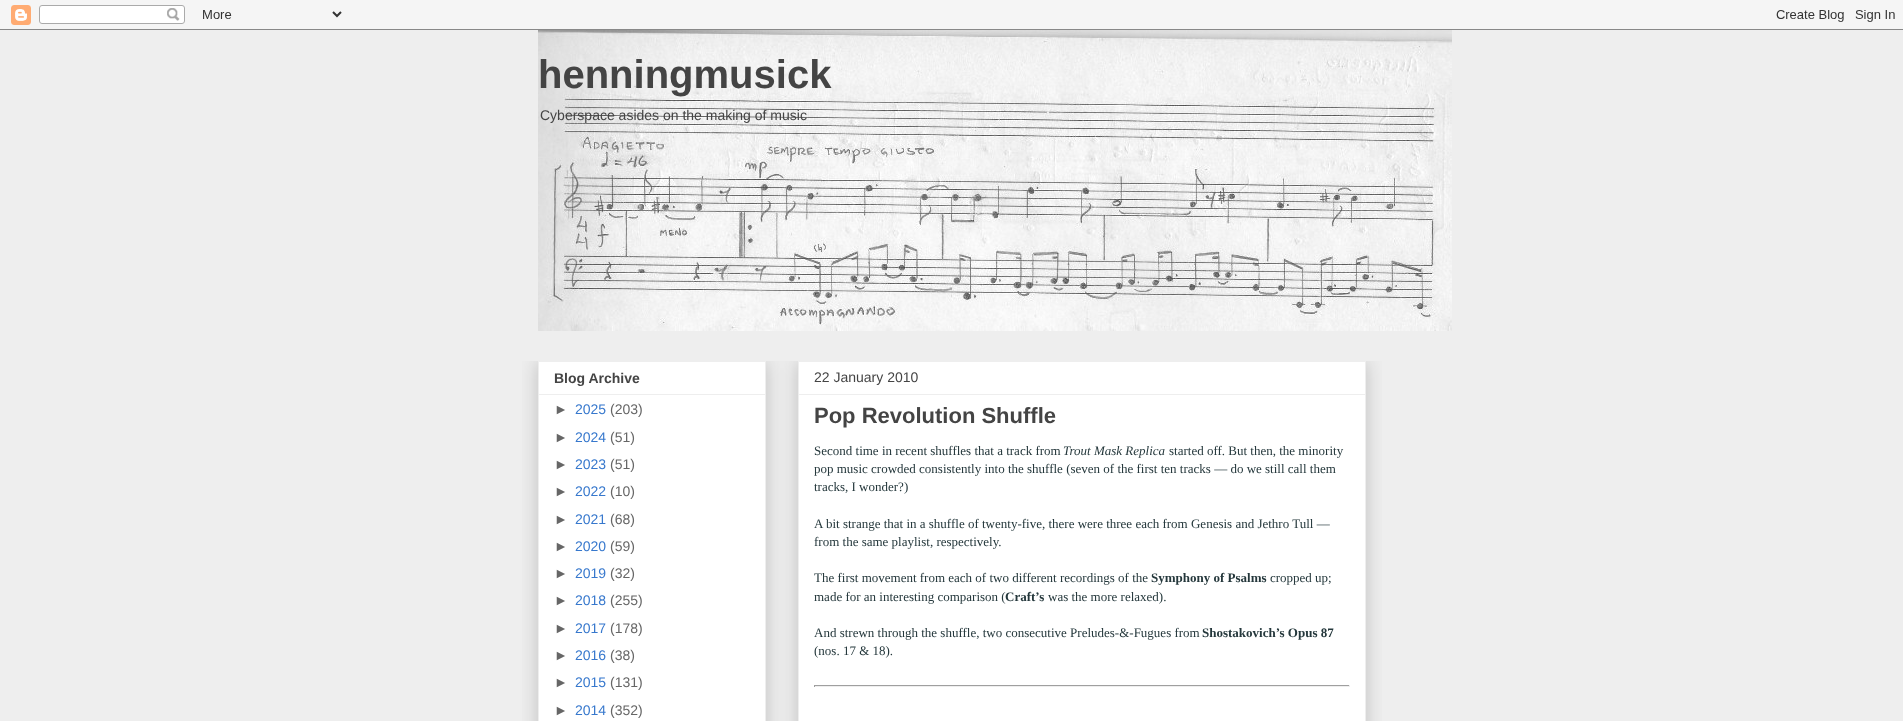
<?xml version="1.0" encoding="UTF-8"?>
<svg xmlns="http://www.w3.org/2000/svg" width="1903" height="721">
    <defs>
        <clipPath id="clip1"><rect x="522" y="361" width="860" height="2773"/></clipPath>
        <filter id="blur1" x="-50%" y="-200%" width="200%" height="500%"><feGaussianBlur stdDeviation="10"/></filter>
    </defs>
    <rect width="100%" height="100%" fill="#EEEEEE"/>
    <image x="0" y="0" width="1903" height="30" href="img_01.png"/>
    <image x="538" y="30" width="914" height="301" href="img_02.png"/>
    <text x="538" y="88" font-family="Liberation Sans" font-size="40" font-weight="700" fill="#444444">henningmusick</text>
    <text x="540" y="120" font-family="Liberation Sans" font-size="14" fill="#444444">Cyberspace asides on the making of music</text>
    <g clip-path="url(#clip1)">
        <rect x="538" y="361" width="228" height="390" fill="#000000" fill-opacity="0.2" filter="url(#blur1)"/>
    </g>
    <rect x="538.5" y="361.5" width="227" height="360" fill="#FFFFFF" stroke="#EEEEEE"/>
    <text x="554" y="383" font-family="Liberation Sans" font-size="14" font-weight="700" fill="#444444">Blog Archive</text>
    <rect x="539" y="394" width="226" height="1" fill="#EEEEEE"/>
    <text x="554" y="414" font-family="Liberation Sans" font-size="14" fill="#666666">►</text>
    <text x="575" y="414" font-family="Liberation Sans" font-size="14" fill="#3778CD">2025</text>
    <text x="610" y="414" font-family="Liberation Sans" font-size="14" fill="#666666">(203)</text>
    <text x="554" y="442" font-family="Liberation Sans" font-size="14" fill="#666666">►</text>
    <text x="575" y="442" font-family="Liberation Sans" font-size="14" fill="#3778CD">2024</text>
    <text x="610" y="442" font-family="Liberation Sans" font-size="14" fill="#666666">(51)</text>
    <text x="554" y="469" font-family="Liberation Sans" font-size="14" fill="#666666">►</text>
    <text x="575" y="469" font-family="Liberation Sans" font-size="14" fill="#3778CD">2023</text>
    <text x="610" y="469" font-family="Liberation Sans" font-size="14" fill="#666666">(51)</text>
    <text x="554" y="496" font-family="Liberation Sans" font-size="14" fill="#666666">►</text>
    <text x="575" y="496" font-family="Liberation Sans" font-size="14" fill="#3778CD">2022</text>
    <text x="610" y="496" font-family="Liberation Sans" font-size="14" fill="#666666">(10)</text>
    <text x="554" y="524" font-family="Liberation Sans" font-size="14" fill="#666666">►</text>
    <text x="575" y="524" font-family="Liberation Sans" font-size="14" fill="#3778CD">2021</text>
    <text x="610" y="524" font-family="Liberation Sans" font-size="14" fill="#666666">(68)</text>
    <text x="554" y="551" font-family="Liberation Sans" font-size="14" fill="#666666">►</text>
    <text x="575" y="551" font-family="Liberation Sans" font-size="14" fill="#3778CD">2020</text>
    <text x="610" y="551" font-family="Liberation Sans" font-size="14" fill="#666666">(59)</text>
    <text x="554" y="578" font-family="Liberation Sans" font-size="14" fill="#666666">►</text>
    <text x="575" y="578" font-family="Liberation Sans" font-size="14" fill="#3778CD">2019</text>
    <text x="610" y="578" font-family="Liberation Sans" font-size="14" fill="#666666">(32)</text>
    <text x="554" y="605" font-family="Liberation Sans" font-size="14" fill="#666666">►</text>
    <text x="575" y="605" font-family="Liberation Sans" font-size="14" fill="#3778CD">2018</text>
    <text x="610" y="605" font-family="Liberation Sans" font-size="14" fill="#666666">(255)</text>
    <text x="554" y="633" font-family="Liberation Sans" font-size="14" fill="#666666">►</text>
    <text x="575" y="633" font-family="Liberation Sans" font-size="14" fill="#3778CD">2017</text>
    <text x="610" y="633" font-family="Liberation Sans" font-size="14" fill="#666666">(178)</text>
    <text x="554" y="660" font-family="Liberation Sans" font-size="14" fill="#666666">►</text>
    <text x="575" y="660" font-family="Liberation Sans" font-size="14" fill="#3778CD">2016</text>
    <text x="610" y="660" font-family="Liberation Sans" font-size="14" fill="#666666">(38)</text>
    <text x="554" y="687" font-family="Liberation Sans" font-size="14" fill="#666666">►</text>
    <text x="575" y="687" font-family="Liberation Sans" font-size="14" fill="#3778CD">2015</text>
    <text x="610" y="687" font-family="Liberation Sans" font-size="14" fill="#666666">(131)</text>
    <text x="554" y="715" font-family="Liberation Sans" font-size="14" fill="#666666">►</text>
    <text x="575" y="715" font-family="Liberation Sans" font-size="14" fill="#3778CD">2014</text>
    <text x="610" y="715" font-family="Liberation Sans" font-size="14" fill="#666666">(352)</text>
    <g clip-path="url(#clip1)">
        <rect x="798" y="361" width="568" height="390" fill="#000000" fill-opacity="0.2" filter="url(#blur1)"/>
    </g>
    <rect x="798.5" y="361.5" width="567" height="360" fill="#FFFFFF" stroke="#EEEEEE"/>
    <text x="814" y="382" font-family="Liberation Sans" font-size="14" fill="#444444">22 January 2010</text>
    <rect x="799" y="394" width="566" height="1" fill="#EEEEEE"/>
    <text x="814" y="423" font-family="Liberation Sans" font-size="22" font-weight="700" fill="#444444">Pop Revolution Shuffle</text>
    <text x="814" y="455" font-family="Liberation Serif" font-size="13" fill="#25383C">Second time in recent shuffles that a track from</text>
    <text x="1063" y="455" font-family="Liberation Serif" font-size="13" font-style="italic" fill="#25383C">Trout Mask Replica</text>
    <text x="1169" y="455" font-family="Liberation Serif" font-size="13" fill="#25383C">started off. But then, the minority</text>
    <text font-family="Liberation Serif" font-size="13" fill="#25383C">
        <tspan x="814" y="473">pop music crowded consistently into the shuffle (seven of the first ten tracks — do we still call them</tspan>
        <tspan x="814" y="491">tracks, I wonder?)</tspan>
    </text>
    <text font-family="Liberation Serif" font-size="13" fill="#25383C">
        <tspan x="814" y="528">A bit strange that in a shuffle of twenty-five, there were three each from Genesis and Jethro Tull —</tspan>
        <tspan x="814" y="546">from the same playlist, respectively.</tspan>
    </text>
    <text x="814" y="582" font-family="Liberation Serif" font-size="13" fill="#25383C">The first movement from each of two different recordings of the</text>
    <text x="1151" y="582" font-family="Liberation Serif" font-size="13" font-weight="700" fill="#25383C">Symphony of Psalms</text>
    <text x="1270" y="582" font-family="Liberation Serif" font-size="13" fill="#25383C">cropped up;</text>
    <text x="814" y="601" font-family="Liberation Serif" font-size="13" fill="#25383C">made for an interesting comparison (</text>
    <text x="1005" y="601" font-family="Liberation Serif" font-size="13" font-weight="700" fill="#25383C">Craft’s</text>
    <text x="1048" y="601" font-family="Liberation Serif" font-size="13" fill="#25383C">was the more relaxed).</text>
    <text x="814" y="637" font-family="Liberation Serif" font-size="13" fill="#25383C">And strewn through the shuffle, two consecutive Preludes-&amp;-Fugues from</text>
    <text x="1202" y="637" font-family="Liberation Serif" font-size="13" font-weight="700" fill="#25383C">Shostakovich’s Opus 87</text>
    <text x="814" y="655" font-family="Liberation Serif" font-size="13" fill="#25383C">(nos. 17 &amp; 18).</text>
    <rect x="814" y="685" width="536" height="1" fill="#9F9F9F"/>
    <rect x="1349" y="685" width="1" height="2" fill="#EEEEEE"/>
    <rect x="814" y="686" width="536" height="1" fill="#EEEEEE"/>
    <rect x="814" y="685" width="1" height="2" fill="#9F9F9F"/>
</svg>
